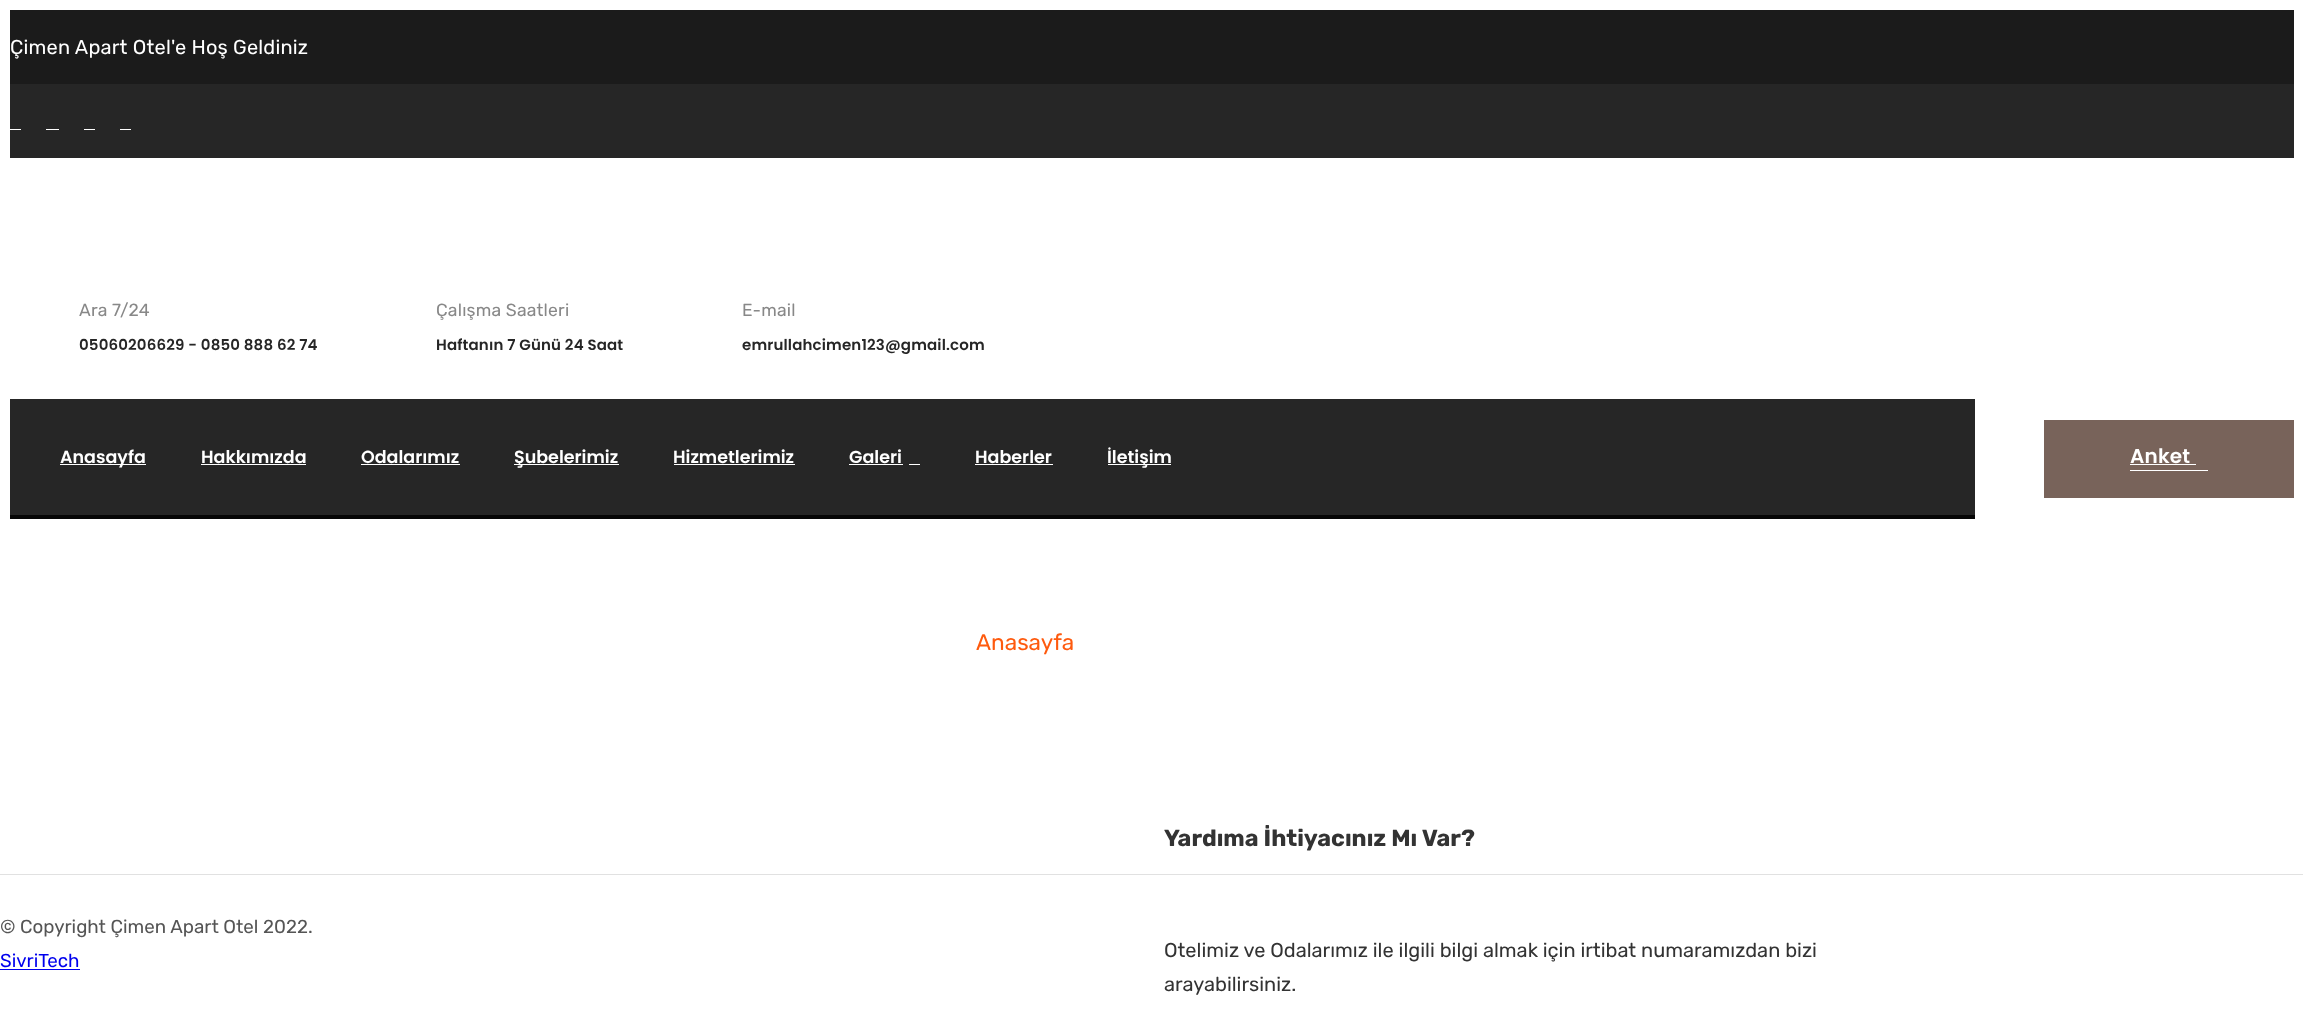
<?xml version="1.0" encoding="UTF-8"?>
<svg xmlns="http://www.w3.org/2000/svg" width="2303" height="1013">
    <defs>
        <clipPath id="clip1"><rect x="10" y="10" width="2284" height="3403"/></clipPath>
    </defs>
    <rect width="100%" height="100%" fill="#FFFFFF"/>
    <rect x="10" y="84" width="2284" height="74" fill="#262626"/>
    <g clip-path="url(#clip1)">
        <path d="M -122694 10 H 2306 L 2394 84 H -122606 Z" fill="#1B1B1B"/>
    </g>
    <text x="10" y="54" font-family="Rubik" font-size="20" letter-spacing="0.2" fill="#FFFFFF">Çimen Apart Otel'e Hoş Geldiniz</text>
    <rect x="10" y="129" width="11" height="1" fill="#FFFFFF"/>
    <rect x="46" y="129" width="13" height="1" fill="#FFFFFF"/>
    <rect x="84" y="129" width="11" height="1" fill="#FFFFFF"/>
    <rect x="120" y="129" width="11" height="1" fill="#FFFFFF"/>
    <text x="79" y="316" font-family="Rubik" font-size="17.5" letter-spacing="0.2" fill="#888888">Ara 7/24</text>
    <text x="79" y="350" font-family="Poppins" font-size="15" font-weight="600" letter-spacing="0.15" fill="#262626">05060206629 - 0850 888 62 74</text>
    <text x="436" y="316" font-family="Rubik" font-size="17.5" letter-spacing="0.2" fill="#888888">Çalışma Saatleri</text>
    <text x="436" y="350" font-family="Poppins" font-size="15" font-weight="600" letter-spacing="0.15" fill="#262626">Haftanın 7 Günü 24 Saat</text>
    <text x="742" y="316" font-family="Rubik" font-size="17.5" letter-spacing="0.2" fill="#888888">E-mail</text>
    <text x="742" y="350" font-family="Poppins" font-size="15" font-weight="600" letter-spacing="0.15" fill="#262626">emrullahcimen123@gmail.com</text>
    <rect x="10" y="399" width="1965" height="116" fill="#262626"/>
    <rect x="10" y="515" width="1965" height="4" fill="#060606"/>
    <rect x="60" y="464" width="86" height="1" fill="#FFFFFF"/>
    <text x="60" y="463" font-family="Poppins" font-size="17.5" font-weight="600" fill="#FFFFFF">Anasayfa</text>
    <text x="201" y="463" font-family="Poppins" font-size="17.5" font-weight="600" fill="#FFFFFF">Hakkımızda</text>
    <rect x="201" y="464" width="105" height="1" fill="#FFFFFF"/>
    <text x="361" y="463" font-family="Poppins" font-size="17.5" font-weight="600" fill="#FFFFFF">Odalarımız</text>
    <rect x="361" y="464" width="99" height="1" fill="#FFFFFF"/>
    <rect x="514" y="464" width="105" height="1" fill="#FFFFFF"/>
    <text x="514" y="463" font-family="Poppins" font-size="17.5" font-weight="600" fill="#FFFFFF">Şubelerimiz</text>
    <text x="673" y="463" font-family="Poppins" font-size="17.5" font-weight="600" fill="#FFFFFF">Hizmetlerimiz</text>
    <rect x="674" y="464" width="121" height="1" fill="#FFFFFF"/>
    <text x="849" y="463" font-family="Poppins" font-size="17.5" font-weight="600" fill="#FFFFFF">Galeri</text>
    <rect x="849" y="464" width="54" height="1" fill="#FFFFFF"/>
    <rect x="909" y="464" width="11" height="1" fill="#FFFFFF"/>
    <text x="975" y="463" font-family="Poppins" font-size="17.5" font-weight="600" fill="#FFFFFF">Haberler</text>
    <rect x="975" y="464" width="78" height="1" fill="#FFFFFF"/>
    <rect x="1108" y="464" width="63" height="1" fill="#FFFFFF"/>
    <text x="1107" y="463" font-family="Poppins" font-size="17.5" font-weight="600" fill="#FFFFFF">İletişim</text>
    <rect x="2044" y="420" width="250" height="78" fill="#78635A"/>
    <rect x="2130" y="470" width="78" height="1" fill="#FFFFFF"/>
    <text x="2130" y="463" font-family="Poppins" font-size="20" font-weight="600" letter-spacing="0.2" fill="#FFFFFF">Anket</text>
    <rect x="2130" y="464" width="66" height="1" fill="#FFFFFF"/>
    <text x="976" y="650" font-family="Rubik" font-size="22.5" fill="#FE5A0E">Anasayfa</text>
    <text x="1164" y="846" font-family="Rubik" font-size="23.4" font-weight="700" fill="#333333">Yardıma İhtiyacınız Mı Var?</text>
    <text font-family="Rubik" font-size="20" fill="#333333">
        <tspan x="1164" y="957">Otelimiz ve Odalarımız ile ilgili bilgi almak için irtibat numaramızdan bizi</tspan>
        <tspan x="1164" y="991">arayabilirsiniz.</tspan>
    </text>
    <rect x="0" y="874" width="2303" height="1" fill="#E1E1E1"/>
    <text x="0" y="933" font-family="Rubik" font-size="18.75" fill="#555555">© Copyright Çimen Apart Otel 2022.</text>
    <text x="0" y="967" font-family="Rubik" font-size="18.75" fill="#0000EE">SivriTech</text>
    <rect x="0" y="969" width="80" height="1" fill="#0000EE"/>
</svg>
